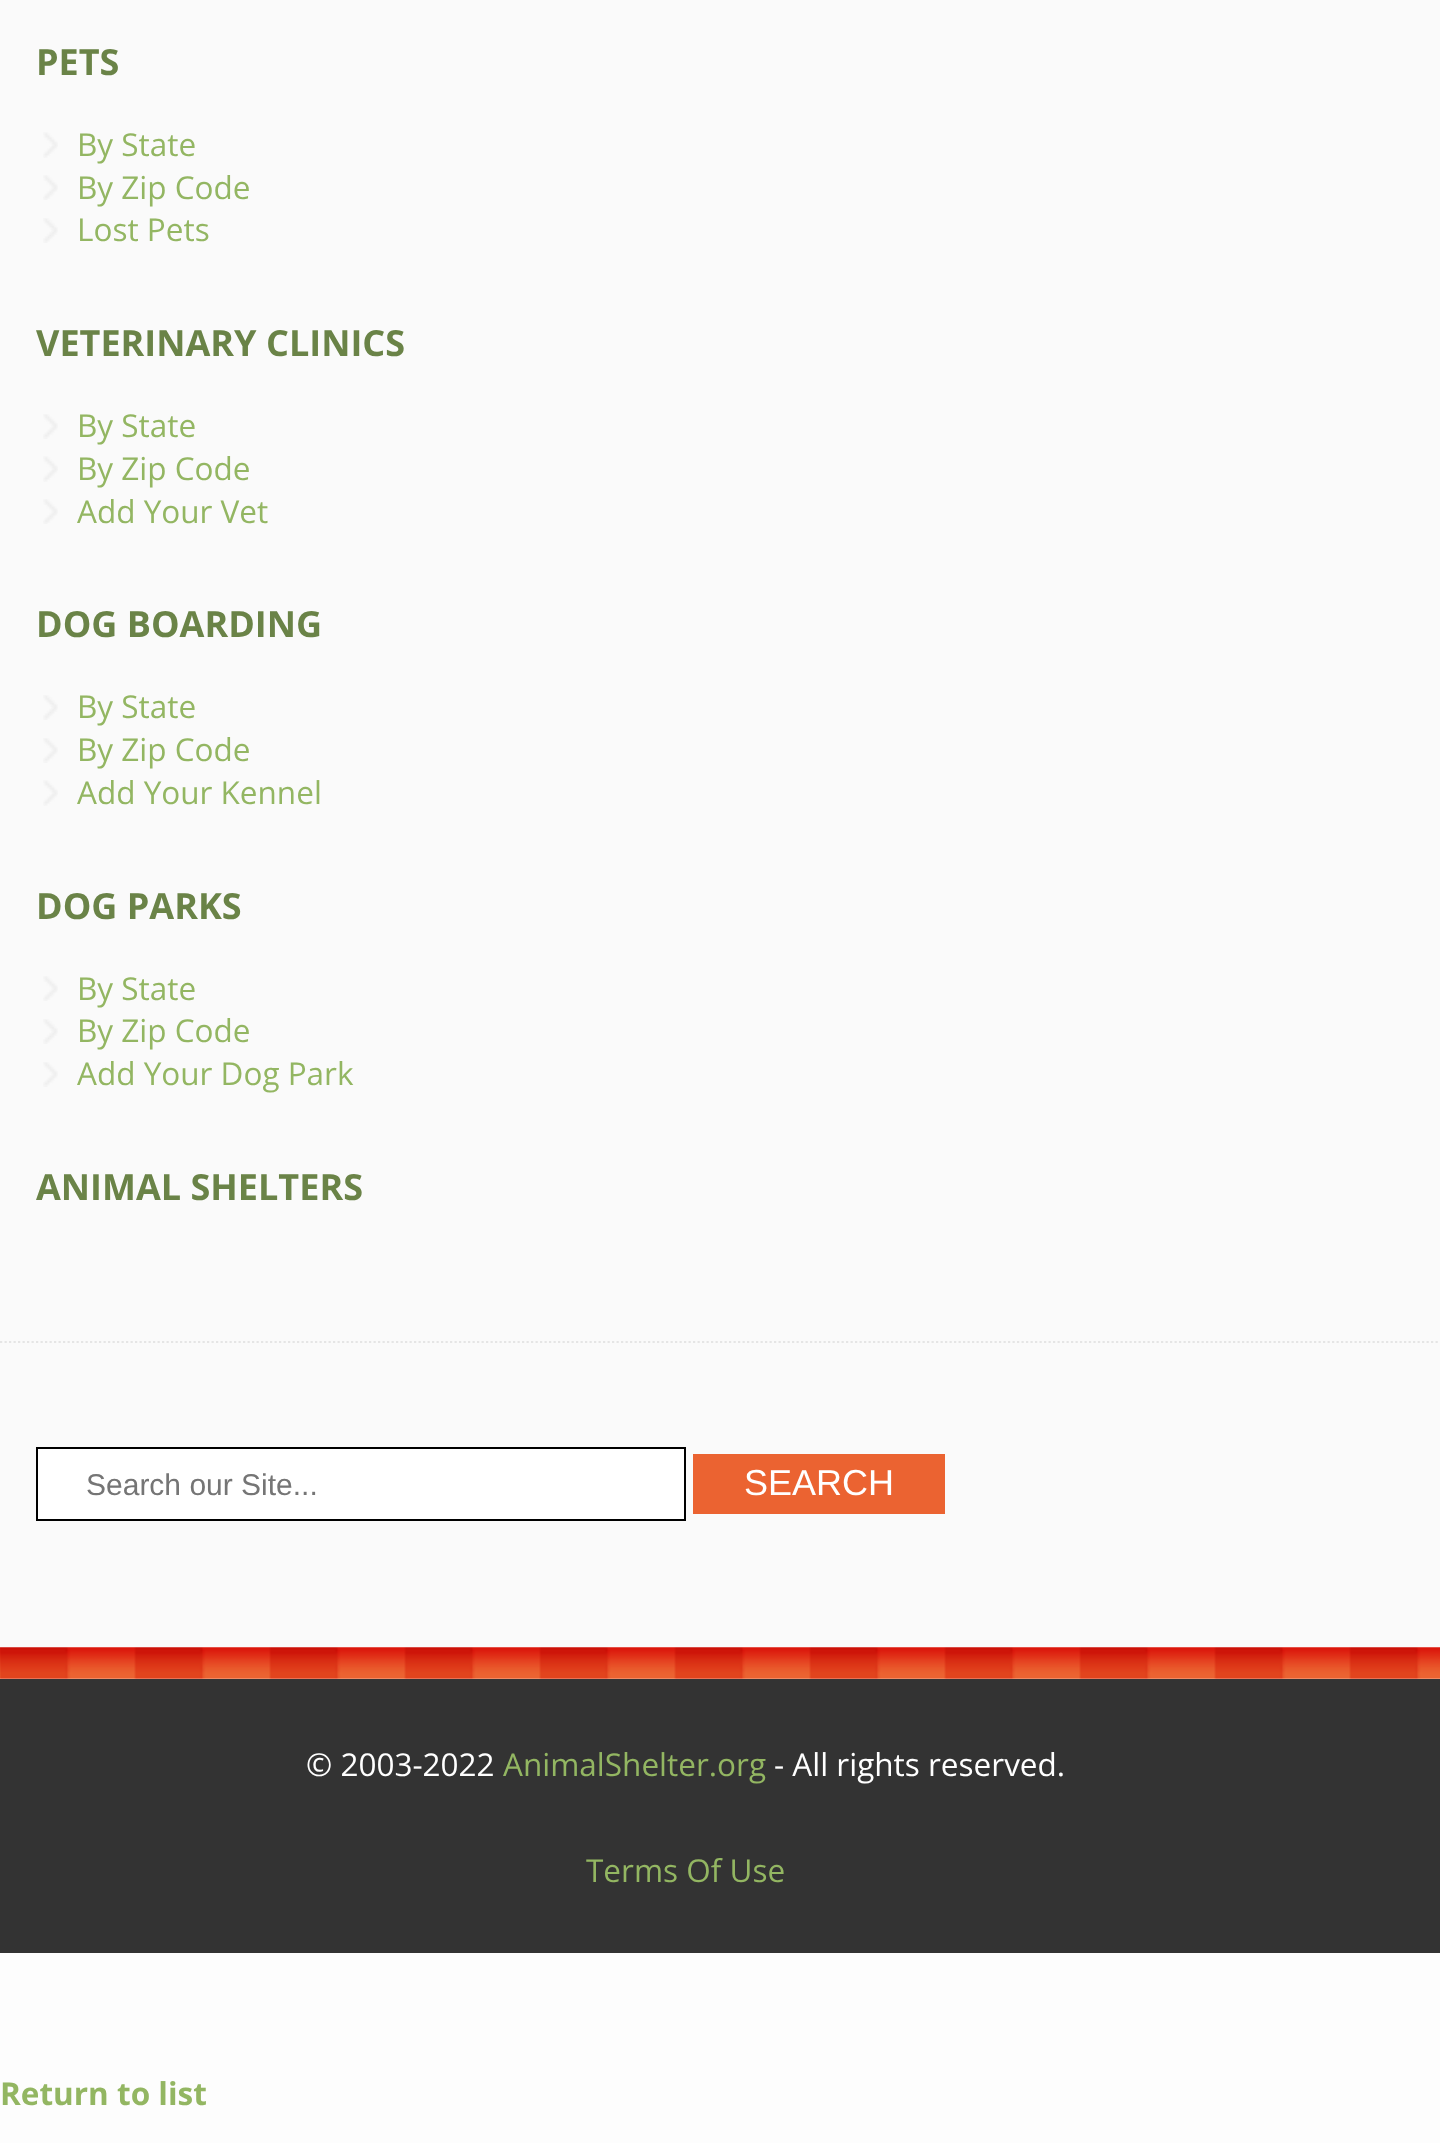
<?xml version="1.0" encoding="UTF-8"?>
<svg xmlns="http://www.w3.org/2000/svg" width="1440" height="2143">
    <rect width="100%" height="100%" fill="#FDFDFD"/>
    <rect x="0" y="0" width="1440" height="1647" fill="#FAFAFA"/>
    <text x="36" y="75" font-family="Open Sans" font-size="36" font-weight="700" fill="#6A8347">PETS</text>
    <image x="43" y="132" width="15" height="26" href="img_01.png"/>
    <text x="77" y="156" font-family="Open Sans" font-size="31.5" fill="#93B662">By State</text>
    <image x="43" y="175" width="15" height="25" href="img_02.png"/>
    <text x="77" y="199" font-family="Open Sans" font-size="31.5" fill="#93B662">By Zip Code</text>
    <image x="43" y="218" width="15" height="25" href="img_03.png"/>
    <text x="77" y="241" font-family="Open Sans" font-size="31.5" fill="#93B662">Lost Pets</text>
    <text x="36" y="356" font-family="Open Sans" font-size="36" font-weight="700" fill="#6A8347">VETERINARY CLINICS</text>
    <image x="43" y="414" width="15" height="25" href="img_04.png"/>
    <text x="77" y="437" font-family="Open Sans" font-size="31.5" fill="#93B662">By State</text>
    <image x="43" y="456" width="15" height="26" href="img_01.png"/>
    <text x="77" y="480" font-family="Open Sans" font-size="31.5" fill="#93B662">By Zip Code</text>
    <image x="43" y="499" width="15" height="25" href="img_02.png"/>
    <text x="77" y="523" font-family="Open Sans" font-size="31.5" fill="#93B662">Add Your Vet</text>
    <text x="36" y="637" font-family="Open Sans" font-size="36" font-weight="700" fill="#6A8347">DOG BOARDING</text>
    <image x="43" y="695" width="15" height="25" href="img_03.png"/>
    <text x="77" y="718" font-family="Open Sans" font-size="31.5" fill="#93B662">By State</text>
    <image x="43" y="738" width="15" height="25" href="img_04.png"/>
    <text x="77" y="761" font-family="Open Sans" font-size="31.5" fill="#93B662">By Zip Code</text>
    <image x="43" y="780" width="15" height="26" href="img_01.png"/>
    <text x="77" y="804" font-family="Open Sans" font-size="31.5" fill="#93B662">Add Your Kennel</text>
    <text x="36" y="919" font-family="Open Sans" font-size="36" font-weight="700" fill="#6A8347">DOG PARKS</text>
    <image x="43" y="976" width="15" height="25" href="img_02.png"/>
    <text x="77" y="1000" font-family="Open Sans" font-size="31.5" fill="#93B662">By State</text>
    <image x="43" y="1019" width="15" height="25" href="img_03.png"/>
    <text x="77" y="1042" font-family="Open Sans" font-size="31.5" fill="#93B662">By Zip Code</text>
    <image x="43" y="1062" width="15" height="25" href="img_04.png"/>
    <text x="77" y="1085" font-family="Open Sans" font-size="31.5" fill="#93B662">Add Your Dog Park</text>
    <text x="36" y="1200" font-family="Open Sans" font-size="36" font-weight="700" fill="#6A8347">ANIMAL SHELTERS</text>
    <path d="M 0 1342 H 1440" fill="none" stroke="#E5E5E5" stroke-width="2.2" stroke-dasharray="2.25 2.25"/>
    <rect x="37" y="1448" width="648" height="72" fill="#FFFFFF" stroke="#000000" stroke-width="2"/>
    <text x="86" y="1495" font-family="Liberation Sans" font-size="30" fill="#757575">Search our Site...</text>
    <rect x="693" y="1454" width="252" height="60" fill="#EB6331"/>
    <text x="744" y="1495" font-family="Liberation Sans" font-size="36" fill="#FFFFFF">SEARCH</text>
    <image x="0" y="1647" width="1440" height="32" href="img_05.png"/>
    <rect x="0" y="1679" width="1440" height="274" fill="#333333"/>
    <text x="306" y="1776" font-family="Open Sans" font-size="31.5" fill="#FFFFFF">© 2003-2022</text>
    <text x="503" y="1776" font-family="Open Sans" font-size="31.5" fill="#93B662">AnimalShelter.org</text>
    <text x="774" y="1776" font-family="Open Sans" font-size="31.5" fill="#FFFFFF">- All rights reserved.</text>
    <text x="586" y="1882" font-family="Open Sans" font-size="31.5" fill="#93B662">Terms Of Use</text>
    <text x="0" y="2105" font-family="Open Sans" font-size="31.5" font-weight="700" fill="#93B662">Return to list</text>
</svg>
